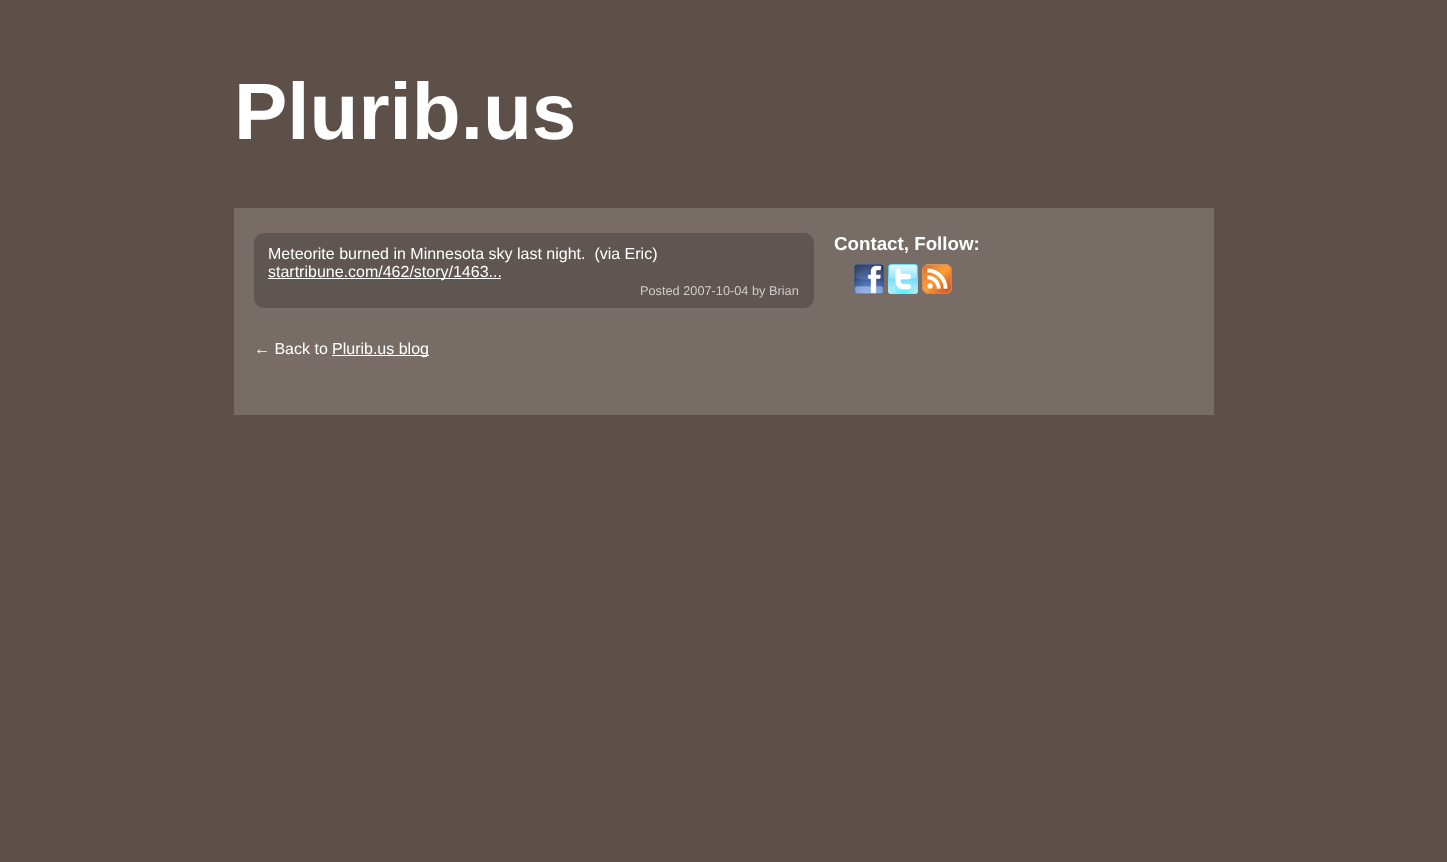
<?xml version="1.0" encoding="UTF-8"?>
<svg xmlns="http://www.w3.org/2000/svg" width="1447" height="862">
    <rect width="100%" height="100%" fill="#5D5049"/>
    <text x="234" y="139" font-family="Liberation Sans" font-size="80" font-weight="700" fill="#FFFFFF">Plurib.us</text>
    <rect x="234" y="208" width="980" height="207" fill="#776C66"/>
    <text x="834" y="250" font-family="Liberation Sans" font-size="18.75" font-weight="700" fill="#FFFFFF">Contact, Follow:</text>
    <image x="854" y="264" width="30" height="30" href="img_01.png"/>
    <image x="888" y="264" width="30" height="30" href="img_02.png"/>
    <image x="922" y="264" width="30" height="30" href="img_03.png"/>
    <rect x="254" y="233" width="560" height="75" rx="10" fill="#5F5652"/>
    <text x="268" y="259" font-family="Liberation Sans" font-size="16" fill="#FFFFFF" xml:space="preserve">Meteorite burned in Minnesota sky last night.  (via Eric)</text>
    <rect x="268" y="278" width="233" height="1" fill="#FFFFFF"/>
    <text x="268" y="277" font-family="Liberation Sans" font-size="16" fill="#FFFFFF">startribune.com/462/story/1463...</text>
    <text x="640" y="295" font-family="Liberation Sans" font-size="12.75" fill="#CFCCCB">Posted 2007-10-04 by Brian</text>
    <text x="254" y="354" font-family="Liberation Sans" font-size="16" fill="#FFFFFF">← Back to</text>
    <rect x="332" y="355" width="97" height="1" fill="#FFFFFF"/>
    <text x="332" y="354" font-family="Liberation Sans" font-size="16" fill="#FFFFFF">Plurib.us blog</text>
</svg>
